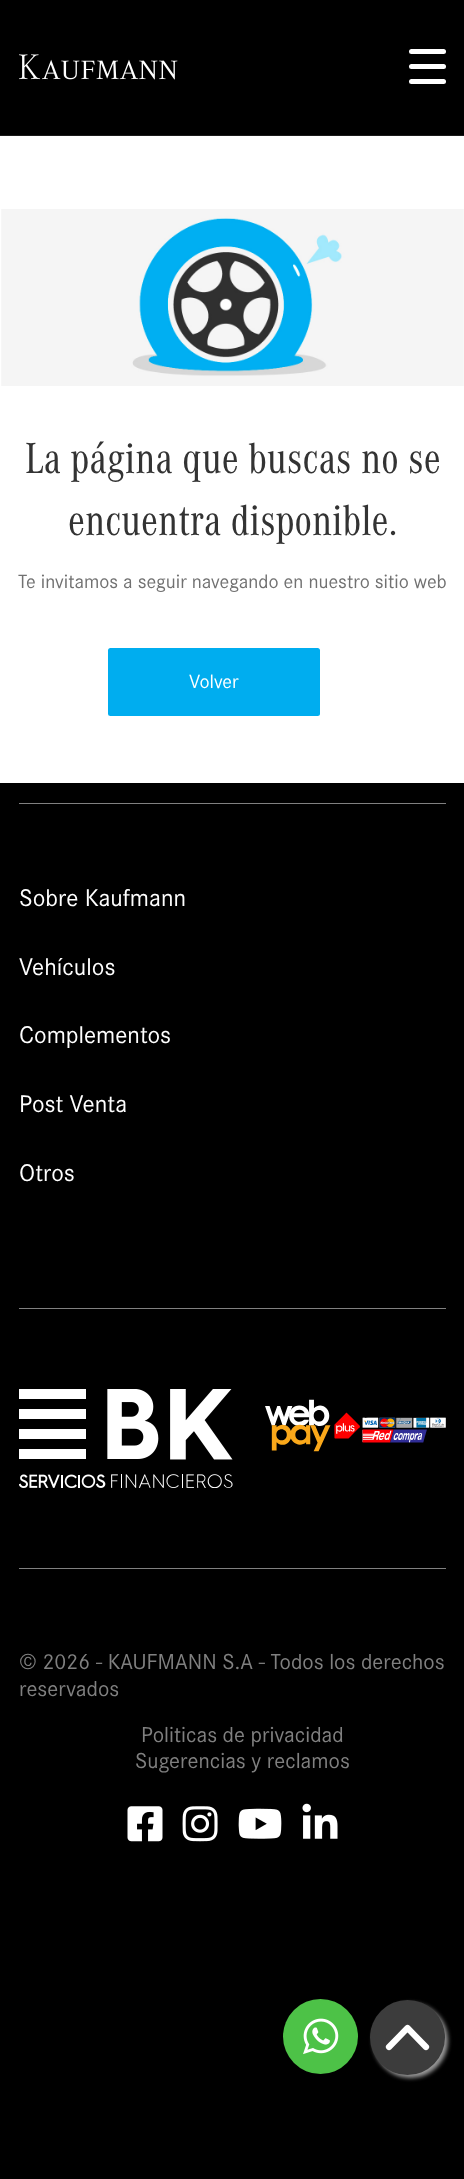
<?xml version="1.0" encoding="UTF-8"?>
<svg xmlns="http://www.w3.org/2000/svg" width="464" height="2179">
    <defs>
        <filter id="blur1" x="-50%" y="-200%" width="200%" height="500%"><feGaussianBlur stdDeviation="2"/></filter>
    </defs>
    <rect width="100%" height="100%" fill="#000000"/>
    <rect x="0" y="135" width="464" height="1" fill="#1A1A1A"/>
    <image x="19" y="54" width="159" height="26" href="img_01.png"/>
    <rect x="409" y="49" width="37" height="5" rx="2.5" fill="#FFFFFF"/>
    <rect x="409" y="64" width="37" height="5" rx="2.5" fill="#FFFFFF"/>
    <rect x="409" y="79" width="37" height="5" rx="2.5" fill="#FFFFFF"/>
    <rect x="0" y="136" width="464" height="647" fill="#FFFFFF"/>
    <image x="1" y="209" width="463" height="177" href="img_02.png"/>
    <text x="25" y="473" font-family="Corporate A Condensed" font-size="45" fill="#333333">La página que buscas no se</text>
    <text x="68" y="535" font-family="Corporate A Condensed" font-size="45" fill="#333333">encuentra disponible.</text>
    <text x="18" y="588" font-family="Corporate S" font-size="20" fill="#717171">Te invitamos a seguir navegando en nuestro sitio web</text>
    <rect x="108" y="648" width="212" height="68" rx="2.5" fill="#00ADEF"/>
    <text x="189" y="688" font-family="Corporate S" font-size="20" fill="#FFFFFF">Volver</text>
    <rect x="19" y="803" width="427" height="1" fill="#808080"/>
    <text x="19" y="906" font-family="Corporate S" font-size="25" fill="#FFFFFF">Sobre Kaufmann</text>
    <text x="19" y="975" font-family="Corporate S" font-size="25" fill="#FFFFFF">Vehículos</text>
    <text x="19" y="1043" font-family="Corporate S" font-size="25" fill="#FFFFFF">Complementos</text>
    <text x="19" y="1112" font-family="Corporate S" font-size="25" fill="#FFFFFF">Post Venta</text>
    <text x="19" y="1181" font-family="Corporate S" font-size="25" fill="#FFFFFF">Otros</text>
    <rect x="19" y="1308" width="427" height="1" fill="#808080"/>
    <image x="19" y="1389" width="214" height="99" href="img_03.png"/>
    <image x="265" y="1399" width="181" height="53" href="img_04.png"/>
    <rect x="19" y="1568" width="427" height="1" fill="#808080"/>
    <text font-family="Corporate S" font-size="22.5" fill="#808080">
        <tspan x="19" y="1669">© 2026 - KAUFMANN S.A - Todos los derechos</tspan>
        <tspan x="19" y="1696">reservados</tspan>
    </text>
    <text x="141" y="1742" font-family="Corporate S" font-size="22.5" fill="#808080">Politicas de privacidad</text>
    <text x="135" y="1768" font-family="Corporate S" font-size="22.5" fill="#808080">Sugerencias y reclamos</text>
    <image x="127" y="1806" width="36" height="36" href="img_05.png"/>
    <image x="182" y="1806" width="36" height="36" href="img_06.png"/>
    <image x="238" y="1808" width="44" height="31" href="img_07.png"/>
    <image x="302" y="1803" width="36" height="36" href="img_08.png"/>
    <circle cx="320.5" cy="2036.5" r="37.5" fill="#4DC247"/>
    <image x="303" y="2018" width="36" height="37" href="img_09.png"/>
    <rect x="373" y="2003" width="75" height="75" rx="37.5" fill="#999999" filter="url(#blur1)"/>
    <circle cx="407.5" cy="2037.5" r="37.5" fill="#3C3C3C"/>
    <path d="M 426 2047 L 407.5 2028 L 389 2047" fill="none" stroke="#FFFFFF" stroke-width="6.2" stroke-linecap="round" stroke-linejoin="round"/>
</svg>
